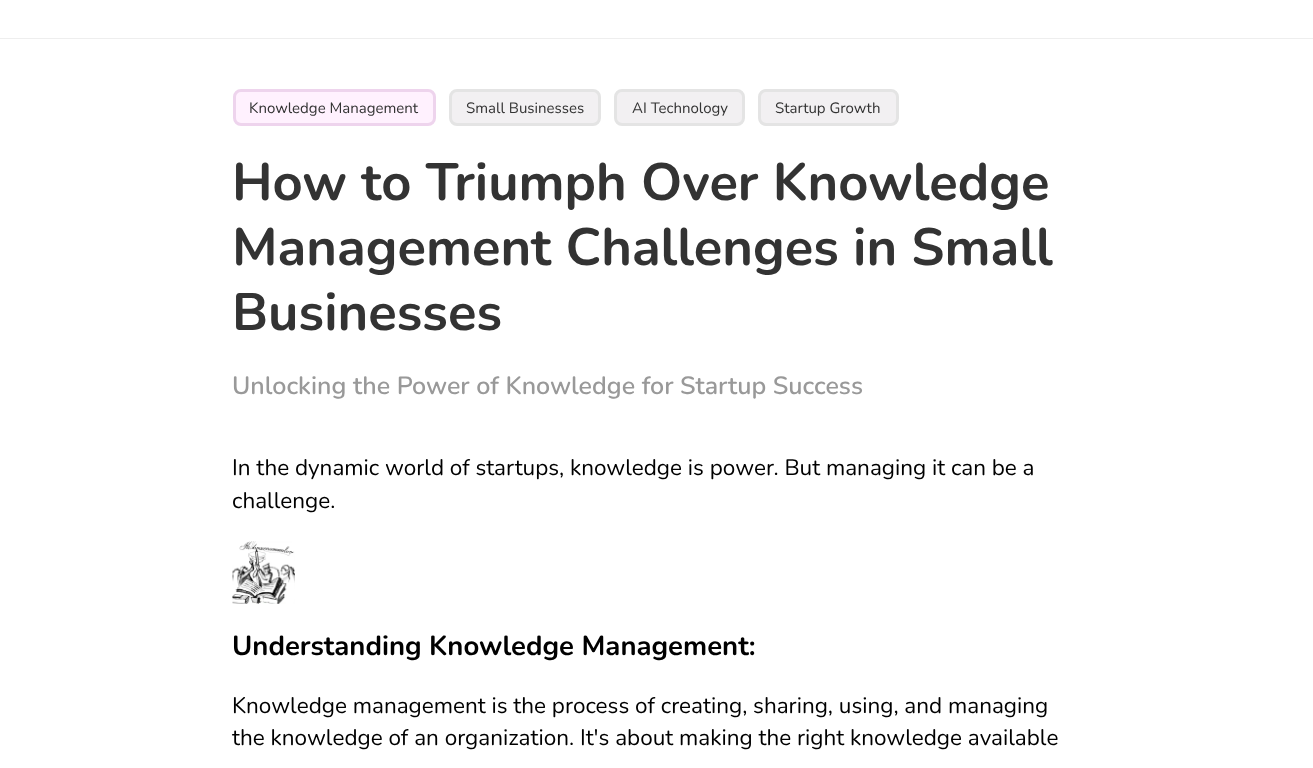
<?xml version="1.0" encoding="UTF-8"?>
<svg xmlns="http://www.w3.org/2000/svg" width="1313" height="768">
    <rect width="100%" height="100%" fill="#FFFFFF"/>
    <rect x="0" y="38" width="1313" height="1" fill="#EEEEEE"/>
    <rect x="234.5" y="90.5" width="200" height="34" rx="6.5" fill="#FFF1FE" stroke="#EED4ED" stroke-width="3"/>
    <text x="249" y="113" font-family="Nunito" font-size="15" fill="#333333">Knowledge Management</text>
    <rect x="450.5" y="90.5" width="149" height="34" rx="6.5" fill="#F2F0F2" stroke="#E4E4E4" stroke-width="3"/>
    <text x="466" y="113" font-family="Nunito" font-size="15" fill="#333333">Small Businesses</text>
    <rect x="615.5" y="90.5" width="128" height="34" rx="6.5" fill="#F2F0F2" stroke="#E4E4E4" stroke-width="3"/>
    <text x="632" y="113" font-family="Nunito" font-size="15" fill="#333333">AI Technology</text>
    <rect x="759.5" y="90.5" width="138" height="34" rx="6.5" fill="#F2F0F2" stroke="#E4E4E4" stroke-width="3"/>
    <text x="775" y="113" font-family="Nunito" font-size="15" fill="#333333">Startup Growth</text>
    <text font-family="Nunito" font-size="52.5" font-weight="700" fill="#333333">
        <tspan x="232" y="200">How to Triumph Over Knowledge</tspan>
        <tspan x="232" y="265">Management Challenges in Small</tspan>
        <tspan x="232" y="330">Businesses</tspan>
    </text>
    <text x="232" y="394" font-family="Nunito" font-size="25" font-weight="600" fill="#999999">Unlocking the Power of Knowledge for Startup Success</text>
    <text font-family="Nunito" font-size="22.5" fill="#000000">
        <tspan x="232" y="475">In the dynamic world of startups, knowledge is power. But managing it can be a</tspan>
        <tspan x="232" y="508">challenge.</tspan>
    </text>
    <image x="232" y="541" width="63" height="63" href="img_01.png"/>
    <text x="232" y="655" font-family="Nunito" font-size="27.5" font-weight="700" fill="#000000">Understanding Knowledge Management:</text>
    <text font-family="Nunito" font-size="22.5" fill="#000000">
        <tspan x="232" y="713">Knowledge management is the process of creating, sharing, using, and managing</tspan>
        <tspan x="232" y="745">the knowledge of an organization. It's about making the right knowledge available</tspan>
    </text>
</svg>
